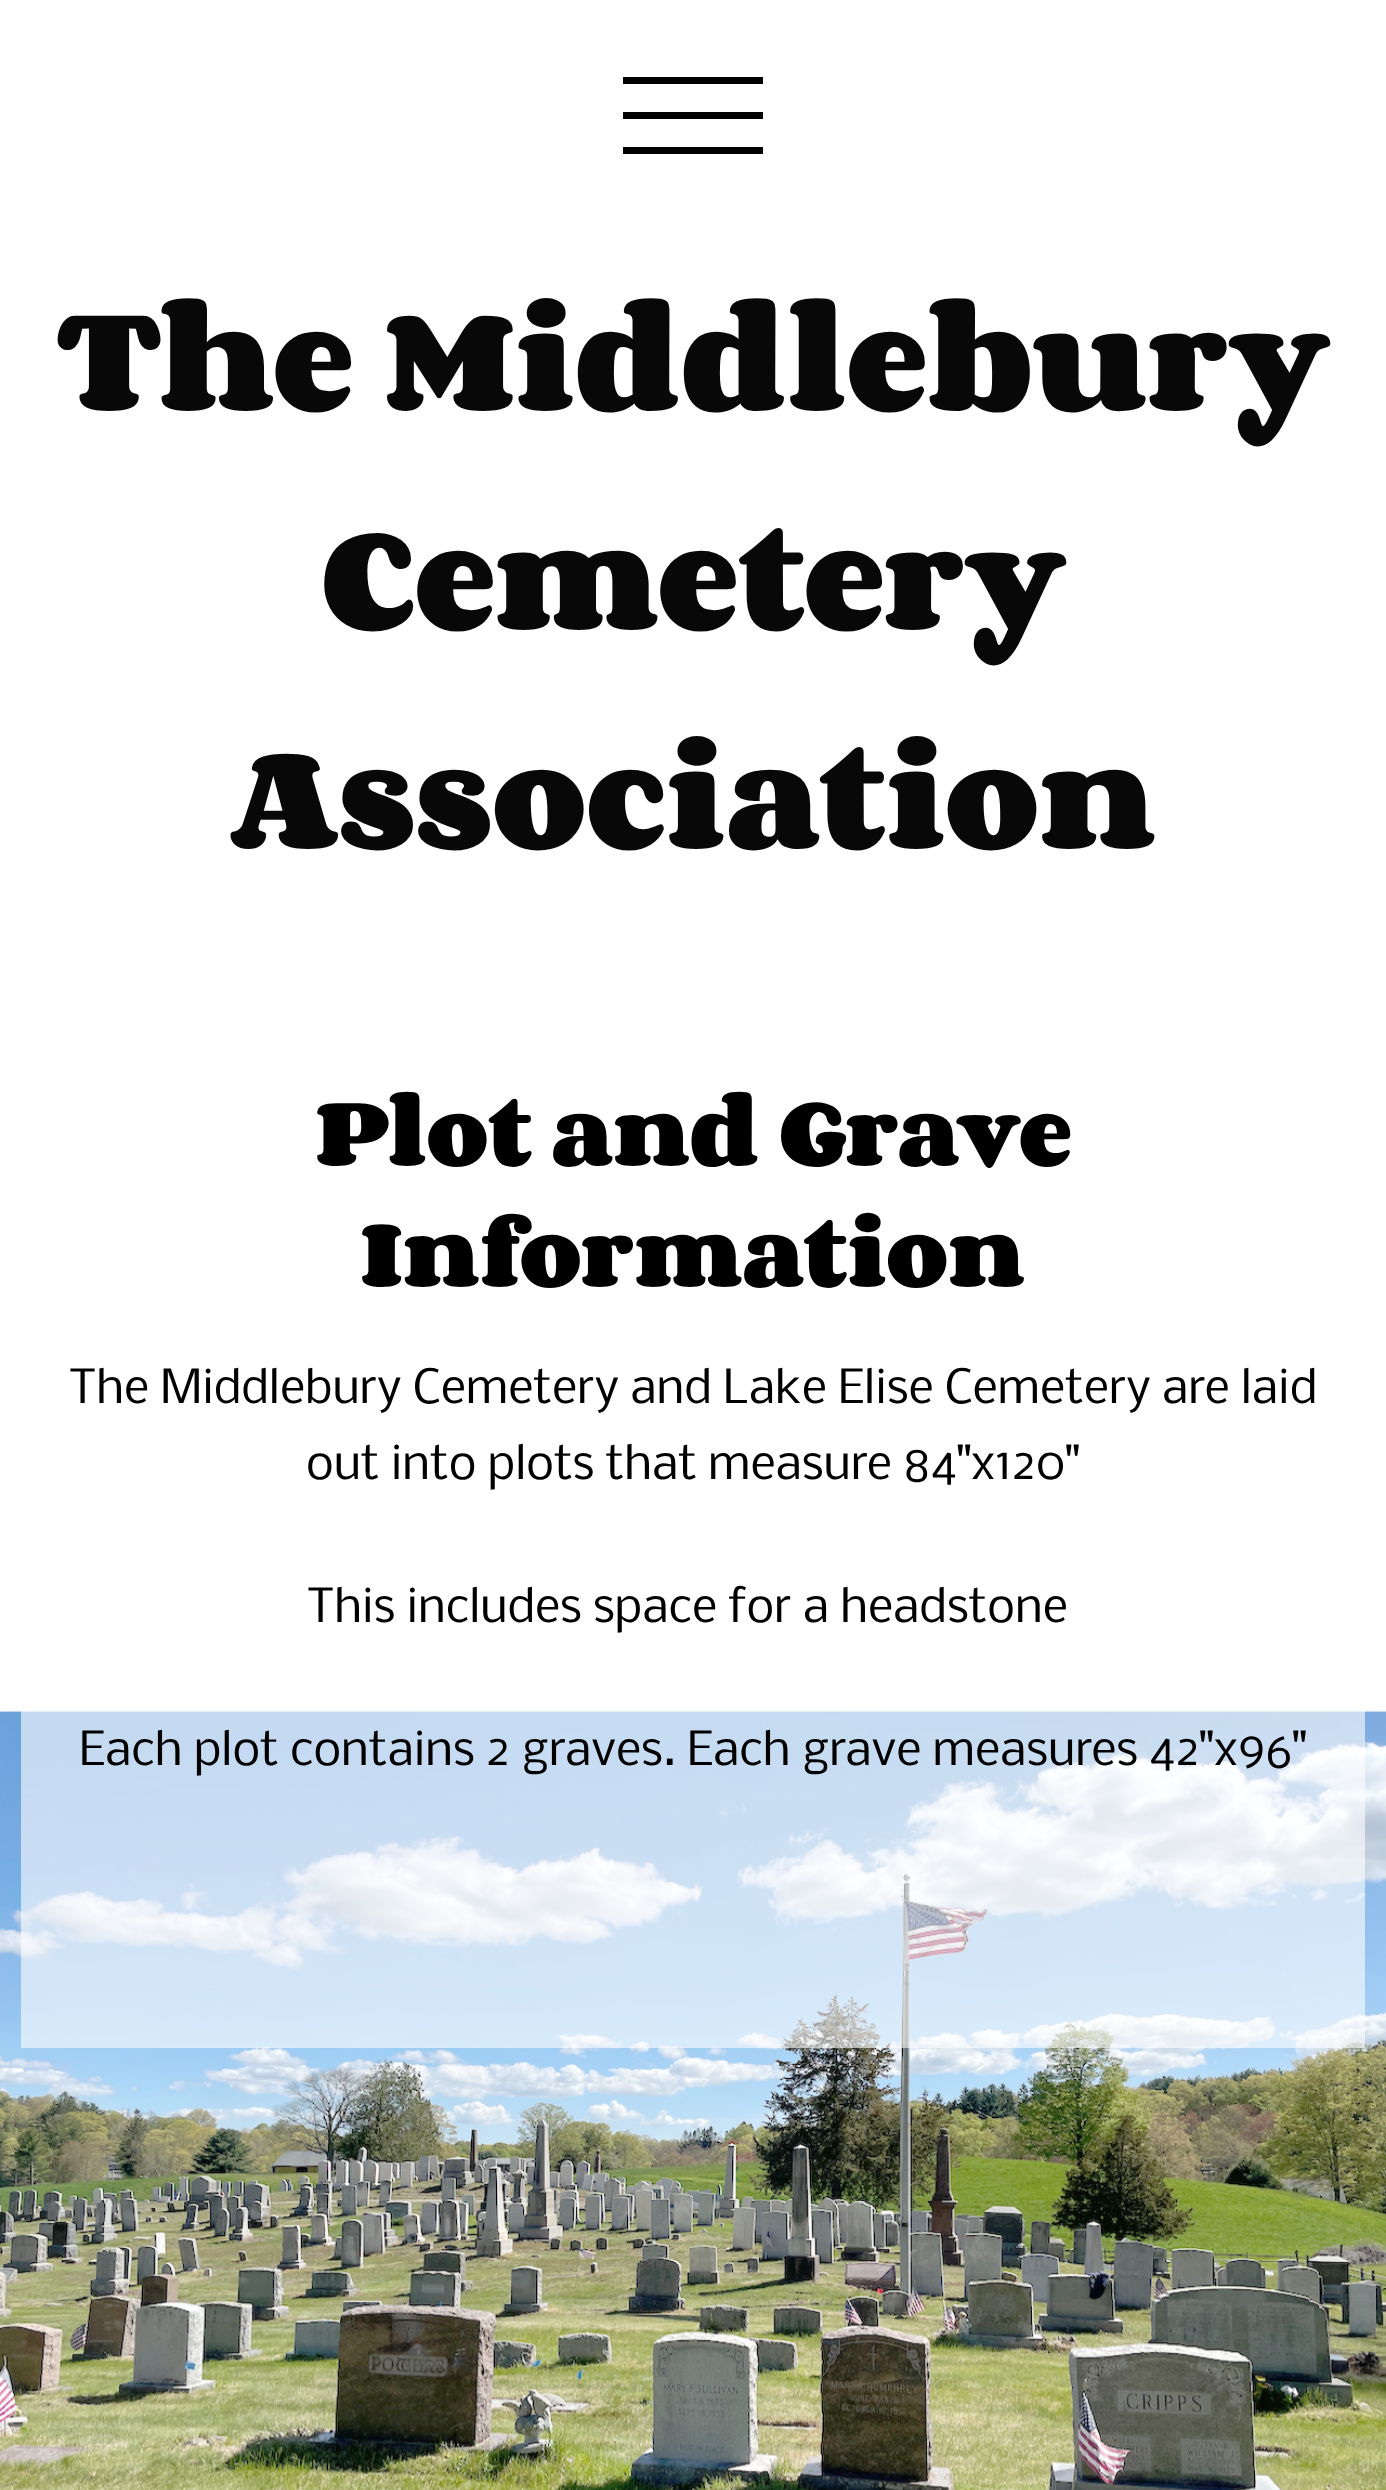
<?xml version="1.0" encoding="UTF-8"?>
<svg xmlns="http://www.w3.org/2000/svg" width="1386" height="2490">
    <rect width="100%" height="100%" fill="#FFFFFF"/>
    <rect x="623" y="77" width="140" height="7" fill="#000000"/>
    <rect x="623" y="112" width="140" height="7" fill="#000000"/>
    <rect x="623" y="147" width="140" height="7" fill="#000000"/>
    <text x="57" y="411" font-family="Corben" font-size="122.5" font-weight="700" fill="#080808">The Middlebury</text>
    <text x="321" y="630" font-family="Corben" font-size="122.5" font-weight="700" fill="#080808">Cemetery</text>
    <text x="231" y="849" font-family="Corben" font-size="122.5" font-weight="700" fill="#080808">Association</text>
    <text x="315" y="1166" font-family="Corben" font-size="80.6" font-weight="700" fill="#000000">Plot and Grave</text>
    <text x="360" y="1287" font-family="Corben" font-size="80.6" font-weight="700" fill="#000000">Information</text>
    <text x="69" y="1403" font-family="Nobile" font-size="44.8" fill="#000000">The Middlebury Cemetery and Lake Elise Cemetery are laid</text>
    <text x="306" y="1479" font-family="Nobile" font-size="44.8" fill="#000000">out into plots that measure 84"x120"</text>
    <text x="307" y="1622" font-family="Nobile" font-size="44.8" fill="#000000">This includes space for a headstone</text>
    <image x="0" y="1710" width="1386" height="780" href="img_01.png"/>
    <rect x="21" y="1710" width="1344" height="338" fill="#FFFFFF" fill-opacity="0.6"/>
    <text x="79" y="1765" font-family="Nobile" font-size="44.8" fill="#000000">Each plot contains 2 graves. Each grave measures 42"x96"</text>
</svg>
